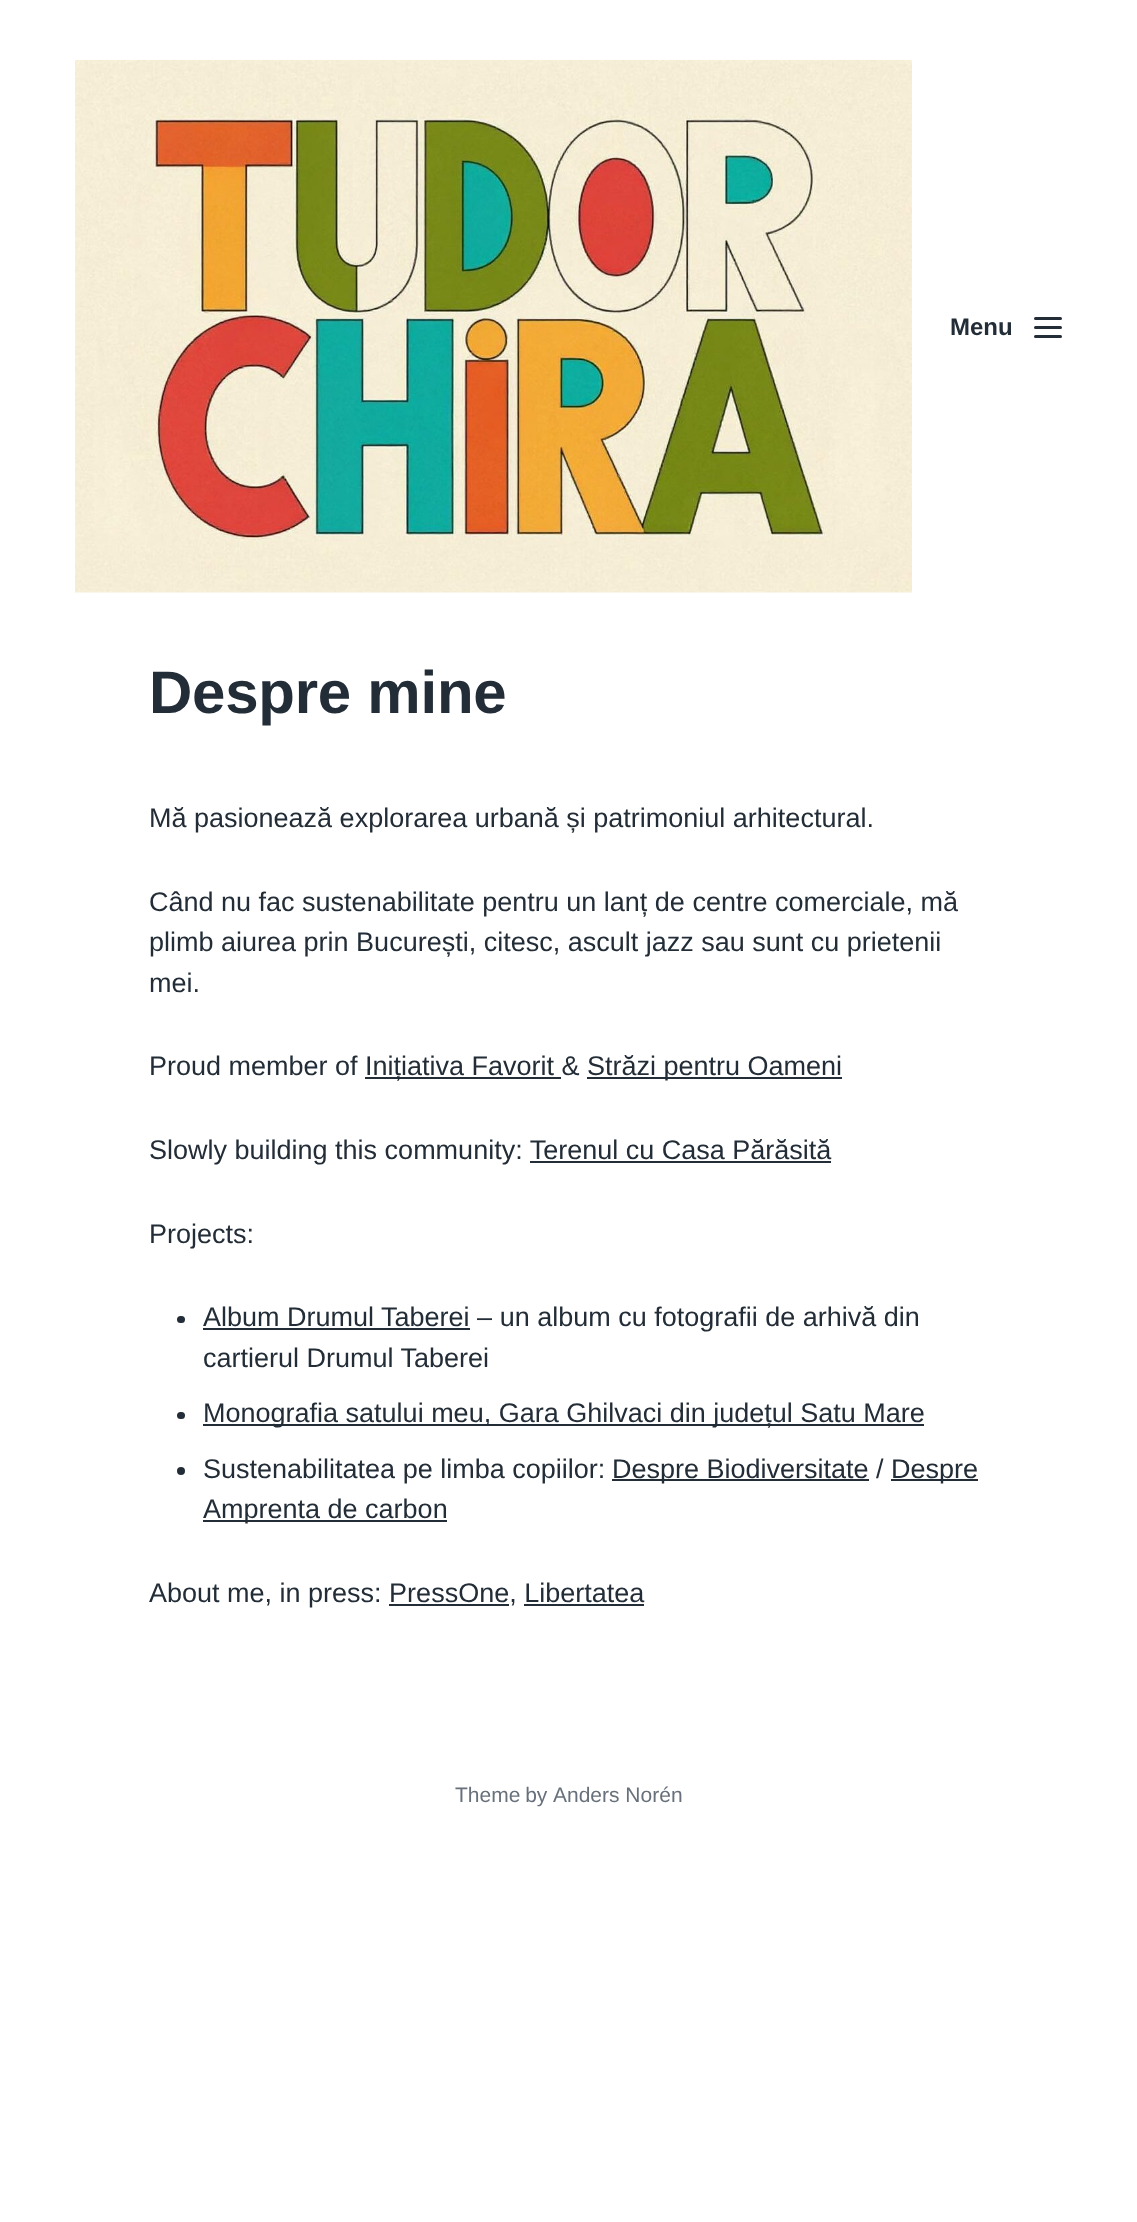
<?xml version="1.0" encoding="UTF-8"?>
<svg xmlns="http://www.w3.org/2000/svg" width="1137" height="2222">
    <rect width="100%" height="100%" fill="#FFFFFF"/>
    <image x="75" y="60" width="837" height="533" href="img_01.png"/>
    <text x="950" y="335" font-family="Liberation Sans" font-size="24" font-weight="700" fill="#232D37">Menu</text>
    <rect x="1034" y="317" width="28" height="3" rx="1.5" fill="#232D37"/>
    <rect x="1034" y="326" width="28" height="3" rx="1.5" fill="#232D37"/>
    <rect x="1034" y="335" width="28" height="3" rx="1.5" fill="#232D37"/>
    <text x="149" y="713" font-family="Liberation Sans" font-size="60" font-weight="700" letter-spacing="-0.25" fill="#232D37">Despre mine</text>
    <text x="149" y="827" font-family="Liberation Sans" font-size="27" fill="#232D37">Mă pasionează explorarea urbană și patrimoniul arhitectural.</text>
    <text font-family="Liberation Sans" font-size="27" fill="#232D37">
        <tspan x="149" y="911">Când nu fac sustenabilitate pentru un lanț de centre comerciale, mă</tspan>
        <tspan x="149" y="951">plimb aiurea prin București, citesc, ascult jazz sau sunt cu prietenii</tspan>
        <tspan x="149" y="992">mei.</tspan>
    </text>
    <text x="149" y="1075" font-family="Liberation Sans" font-size="27" fill="#232D37">Proud member of</text>
    <rect x="365" y="1077" width="196" height="2" fill="#232D37"/>
    <text x="365" y="1075" font-family="Liberation Sans" font-size="27" fill="#232D37">Inițiativa Favorit &amp;</text>
    <rect x="587" y="1077" width="255" height="2" fill="#232D37"/>
    <text x="587" y="1075" font-family="Liberation Sans" font-size="27" fill="#232D37">Străzi pentru Oameni</text>
    <text x="149" y="1159" font-family="Liberation Sans" font-size="27" fill="#232D37">Slowly building this community: Terenul cu Casa Părăsită</text>
    <rect x="530" y="1161" width="301" height="2" fill="#232D37"/>
    <text x="149" y="1243" font-family="Liberation Sans" font-size="27" fill="#232D37">Projects:</text>
    <rect x="177" y="1316" width="8" height="7" rx="3.5" fill="#232D37"/>
    <rect x="203" y="1328" width="267" height="2" fill="#232D37"/>
    <text font-family="Liberation Sans" font-size="27" fill="#232D37">
        <tspan x="203" y="1326">Album Drumul Taberei – un album cu fotografii de arhivă din</tspan>
        <tspan x="203" y="1367">cartierul Drumul Taberei</tspan>
    </text>
    <rect x="177" y="1412" width="8" height="7" rx="3.5" fill="#232D37"/>
    <rect x="203" y="1424" width="721" height="2" fill="#232D37"/>
    <text x="203" y="1422" font-family="Liberation Sans" font-size="27" fill="#232D37">Monografia satului meu, Gara Ghilvaci din județul Satu Mare</text>
    <circle cx="181" cy="1471" r="4" fill="#232D37"/>
    <text x="203" y="1478" font-family="Liberation Sans" font-size="27" fill="#232D37">Sustenabilitatea pe limba copiilor:</text>
    <rect x="612" y="1479" width="257" height="2" fill="#232D37"/>
    <text x="612" y="1478" font-family="Liberation Sans" font-size="27" fill="#232D37">Despre Biodiversitate /</text>
    <rect x="891" y="1479" width="87" height="2" fill="#232D37"/>
    <text x="891" y="1478" font-family="Liberation Sans" font-size="27" fill="#232D37">Despre</text>
    <rect x="203" y="1520" width="244" height="2" fill="#232D37"/>
    <text x="203" y="1518" font-family="Liberation Sans" font-size="27" fill="#232D37">Amprenta de carbon</text>
    <text x="149" y="1602" font-family="Liberation Sans" font-size="27" fill="#232D37">About me, in press: PressOne, Libertatea</text>
    <rect x="389" y="1604" width="120" height="2" fill="#232D37"/>
    <rect x="524" y="1604" width="120" height="2" fill="#232D37"/>
    <text x="455" y="1802" word-spacing="-1" font-family="Liberation Sans" font-size="21" fill="#68717B">Theme by</text>
    <text x="553" y="1802" font-family="Liberation Sans" font-size="21" fill="#68717B">Anders Norén</text>
</svg>
